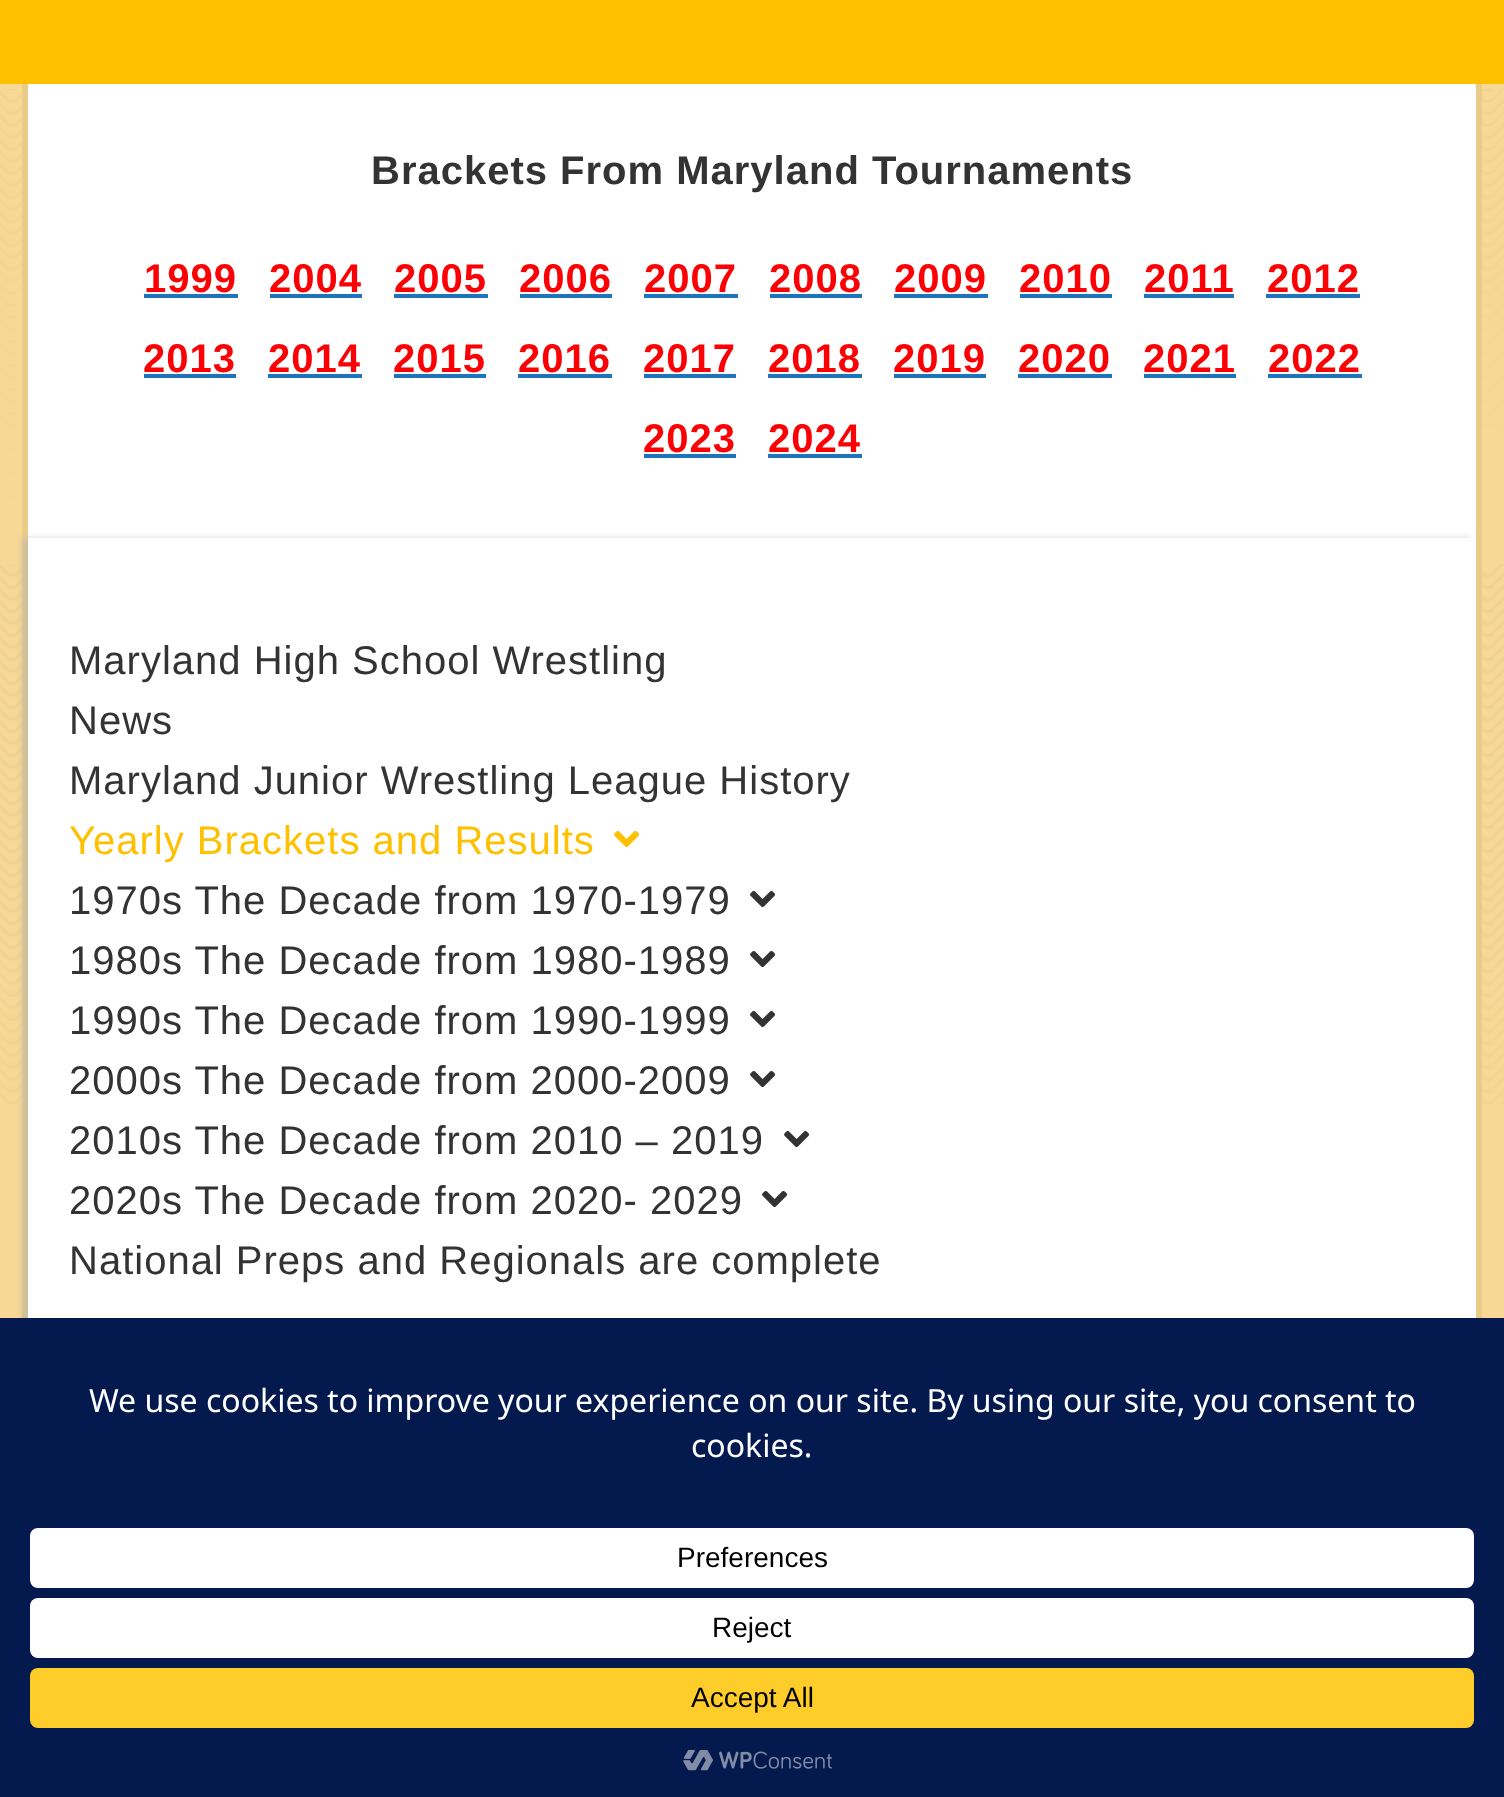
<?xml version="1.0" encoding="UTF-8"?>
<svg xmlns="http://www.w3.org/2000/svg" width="1504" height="1797">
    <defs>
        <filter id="blur1" x="-50%" y="-200%" width="200%" height="500%"><feGaussianBlur stdDeviation="3"/></filter>
    </defs>
    <rect width="100%" height="100%" fill="#FFC000"/>
    <rect x="0" y="84" width="1504" height="1234" fill="#F7D995"/>
    <image x="0" y="89" width="1504" height="1015" href="img_01.png"/>
    <rect x="1476" y="84" width="6" height="1234" fill="#EACC88"/>
    <rect x="22" y="84" width="6" height="1234" fill="#EACC88"/>
    <rect x="28" y="84" width="1448" height="454" fill="#FFFFFF"/>
    <text x="371" y="184" font-family="Liberation Sans" font-size="40" font-weight="700" letter-spacing="1" fill="#333333">Brackets From Maryland Tournaments</text>
    <text x="144" y="292" font-family="Liberation Sans" font-size="40" font-weight="700" letter-spacing="1" fill="#FB0106">1999</text>
    <rect x="144" y="294" width="94" height="4" fill="#1E73BE"/>
    <text x="269" y="292" font-family="Liberation Sans" font-size="40" font-weight="700" letter-spacing="1" fill="#FB0106">2004</text>
    <rect x="270" y="294" width="92" height="4" fill="#1E73BE"/>
    <text x="394" y="292" font-family="Liberation Sans" font-size="40" font-weight="700" letter-spacing="1" fill="#FB0106">2005</text>
    <rect x="394" y="294" width="94" height="4" fill="#1E73BE"/>
    <text x="519" y="292" font-family="Liberation Sans" font-size="40" font-weight="700" letter-spacing="1" fill="#FB0106">2006</text>
    <rect x="520" y="294" width="92" height="4" fill="#1E73BE"/>
    <text x="644" y="292" font-family="Liberation Sans" font-size="40" font-weight="700" letter-spacing="1" fill="#FB0106">2007</text>
    <rect x="644" y="294" width="94" height="4" fill="#1E73BE"/>
    <text x="769" y="292" font-family="Liberation Sans" font-size="40" font-weight="700" letter-spacing="1" fill="#FB0106">2008</text>
    <rect x="770" y="294" width="92" height="4" fill="#1E73BE"/>
    <text x="894" y="292" font-family="Liberation Sans" font-size="40" font-weight="700" letter-spacing="1" fill="#FB0106">2009</text>
    <rect x="894" y="294" width="94" height="4" fill="#1E73BE"/>
    <text x="1019" y="292" font-family="Liberation Sans" font-size="40" font-weight="700" letter-spacing="1" fill="#FB0106">2010</text>
    <rect x="1020" y="294" width="92" height="4" fill="#1E73BE"/>
    <text x="1144" y="292" font-family="Liberation Sans" font-size="40" font-weight="700" letter-spacing="1" fill="#FB0106">2011</text>
    <rect x="1144" y="294" width="90" height="4" fill="#1E73BE"/>
    <text x="1267" y="292" font-family="Liberation Sans" font-size="40" font-weight="700" letter-spacing="1" fill="#FB0106">2012</text>
    <rect x="1266" y="294" width="94" height="4" fill="#1E73BE"/>
    <text x="143" y="372" font-family="Liberation Sans" font-size="40" font-weight="700" letter-spacing="1" fill="#FB0106">2013</text>
    <rect x="144" y="374" width="92" height="4" fill="#1E73BE"/>
    <text x="268" y="372" font-family="Liberation Sans" font-size="40" font-weight="700" letter-spacing="1" fill="#FB0106">2014</text>
    <rect x="268" y="374" width="94" height="4" fill="#1E73BE"/>
    <text x="393" y="372" font-family="Liberation Sans" font-size="40" font-weight="700" letter-spacing="1" fill="#FB0106">2015</text>
    <rect x="394" y="374" width="92" height="4" fill="#1E73BE"/>
    <text x="518" y="372" font-family="Liberation Sans" font-size="40" font-weight="700" letter-spacing="1" fill="#FB0106">2016</text>
    <rect x="518" y="374" width="94" height="4" fill="#1E73BE"/>
    <text x="643" y="372" font-family="Liberation Sans" font-size="40" font-weight="700" letter-spacing="1" fill="#FB0106">2017</text>
    <rect x="644" y="374" width="92" height="4" fill="#1E73BE"/>
    <text x="768" y="372" font-family="Liberation Sans" font-size="40" font-weight="700" letter-spacing="1" fill="#FB0106">2018</text>
    <rect x="768" y="374" width="94" height="4" fill="#1E73BE"/>
    <text x="893" y="372" font-family="Liberation Sans" font-size="40" font-weight="700" letter-spacing="1" fill="#FB0106">2019</text>
    <rect x="894" y="374" width="92" height="4" fill="#1E73BE"/>
    <text x="1018" y="372" font-family="Liberation Sans" font-size="40" font-weight="700" letter-spacing="1" fill="#FB0106">2020</text>
    <rect x="1018" y="374" width="94" height="4" fill="#1E73BE"/>
    <text x="1143" y="372" font-family="Liberation Sans" font-size="40" font-weight="700" letter-spacing="1" fill="#FB0106">2021</text>
    <rect x="1144" y="374" width="92" height="4" fill="#1E73BE"/>
    <text x="1268" y="372" font-family="Liberation Sans" font-size="40" font-weight="700" letter-spacing="1" fill="#FB0106">2022</text>
    <rect x="1268" y="374" width="94" height="4" fill="#1E73BE"/>
    <text x="643" y="452" font-family="Liberation Sans" font-size="40" font-weight="700" letter-spacing="1" fill="#FB0106">2023</text>
    <rect x="644" y="454" width="92" height="4" fill="#1E73BE"/>
    <text x="768" y="452" font-family="Liberation Sans" font-size="40" font-weight="700" letter-spacing="1" fill="#FB0106">2024</text>
    <rect x="768" y="454" width="94" height="4" fill="#1E73BE"/>
    <rect x="22" y="538" width="1448" height="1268" fill="#B2B2B2" fill-opacity="0.5" filter="url(#blur1)"/>
    <rect x="28" y="538" width="1448" height="780" fill="#FFFFFF"/>
    <text font-family="Liberation Sans" font-size="40" letter-spacing="1" fill="#333333">
        <tspan x="69" y="674">Maryland High School Wrestling</tspan>
        <tspan x="69" y="734">News</tspan>
        <tspan x="69" y="794">Maryland Junior Wrestling League History</tspan>
    </text>
    <text x="69" y="854" font-family="Liberation Sans" font-size="40" letter-spacing="1" fill="#FFC000">Yearly Brackets and Results</text>
    <image x="614" y="831" width="26" height="16" href="img_02.png"/>
    <text x="69" y="914" font-family="Liberation Sans" font-size="40" letter-spacing="1" fill="#333333">1970s The Decade from 1970-1979</text>
    <image x="750" y="891" width="26" height="16" href="img_03.png"/>
    <text x="69" y="974" font-family="Liberation Sans" font-size="40" letter-spacing="1" fill="#333333">1980s The Decade from 1980-1989</text>
    <image x="750" y="951" width="26" height="16" href="img_03.png"/>
    <text x="69" y="1034" font-family="Liberation Sans" font-size="40" letter-spacing="1" fill="#333333">1990s The Decade from 1990-1999</text>
    <image x="750" y="1011" width="26" height="16" href="img_03.png"/>
    <text x="69" y="1094" font-family="Liberation Sans" font-size="40" letter-spacing="1" fill="#333333">2000s The Decade from 2000-2009</text>
    <image x="750" y="1071" width="26" height="16" href="img_03.png"/>
    <text x="69" y="1154" font-family="Liberation Sans" font-size="40" letter-spacing="1" fill="#333333">2010s The Decade from 2010 – 2019</text>
    <image x="784" y="1131" width="26" height="16" href="img_03.png"/>
    <text x="69" y="1214" font-family="Liberation Sans" font-size="40" letter-spacing="1" fill="#333333">2020s The Decade from 2020- 2029</text>
    <image x="762" y="1191" width="26" height="16" href="img_03.png"/>
    <text x="69" y="1274" font-family="Liberation Sans" font-size="40" letter-spacing="1" fill="#333333">National Preps and Regionals are complete</text>
    <rect x="0" y="1318" width="1504" height="479" fill="#04194E"/>
    <text x="89" y="1412" font-family="Noto Sans" font-size="32" fill="#FFFFFF">We use cookies to improve your experience on our site. By using our site, you consent to</text>
    <text x="691" y="1457" font-family="Noto Sans" font-size="32" fill="#FFFFFF">cookies.</text>
    <rect x="30" y="1528" width="1444" height="60" rx="8" fill="#FFFFFF"/>
    <text x="677" y="1567" font-family="Liberation Sans" font-size="28" fill="#000000">Preferences</text>
    <rect x="30" y="1598" width="1444" height="60" rx="8" fill="#FFFFFF"/>
    <text x="712" y="1637" font-family="Liberation Sans" font-size="28" fill="#000000">Reject</text>
    <rect x="30" y="1668" width="1444" height="60" rx="8" fill="#FFCD2A"/>
    <text x="691" y="1707" font-family="Liberation Sans" font-size="28" fill="#000000">Accept All</text>
    <image x="683" y="1749" width="149" height="22" href="img_04.png"/>
</svg>
